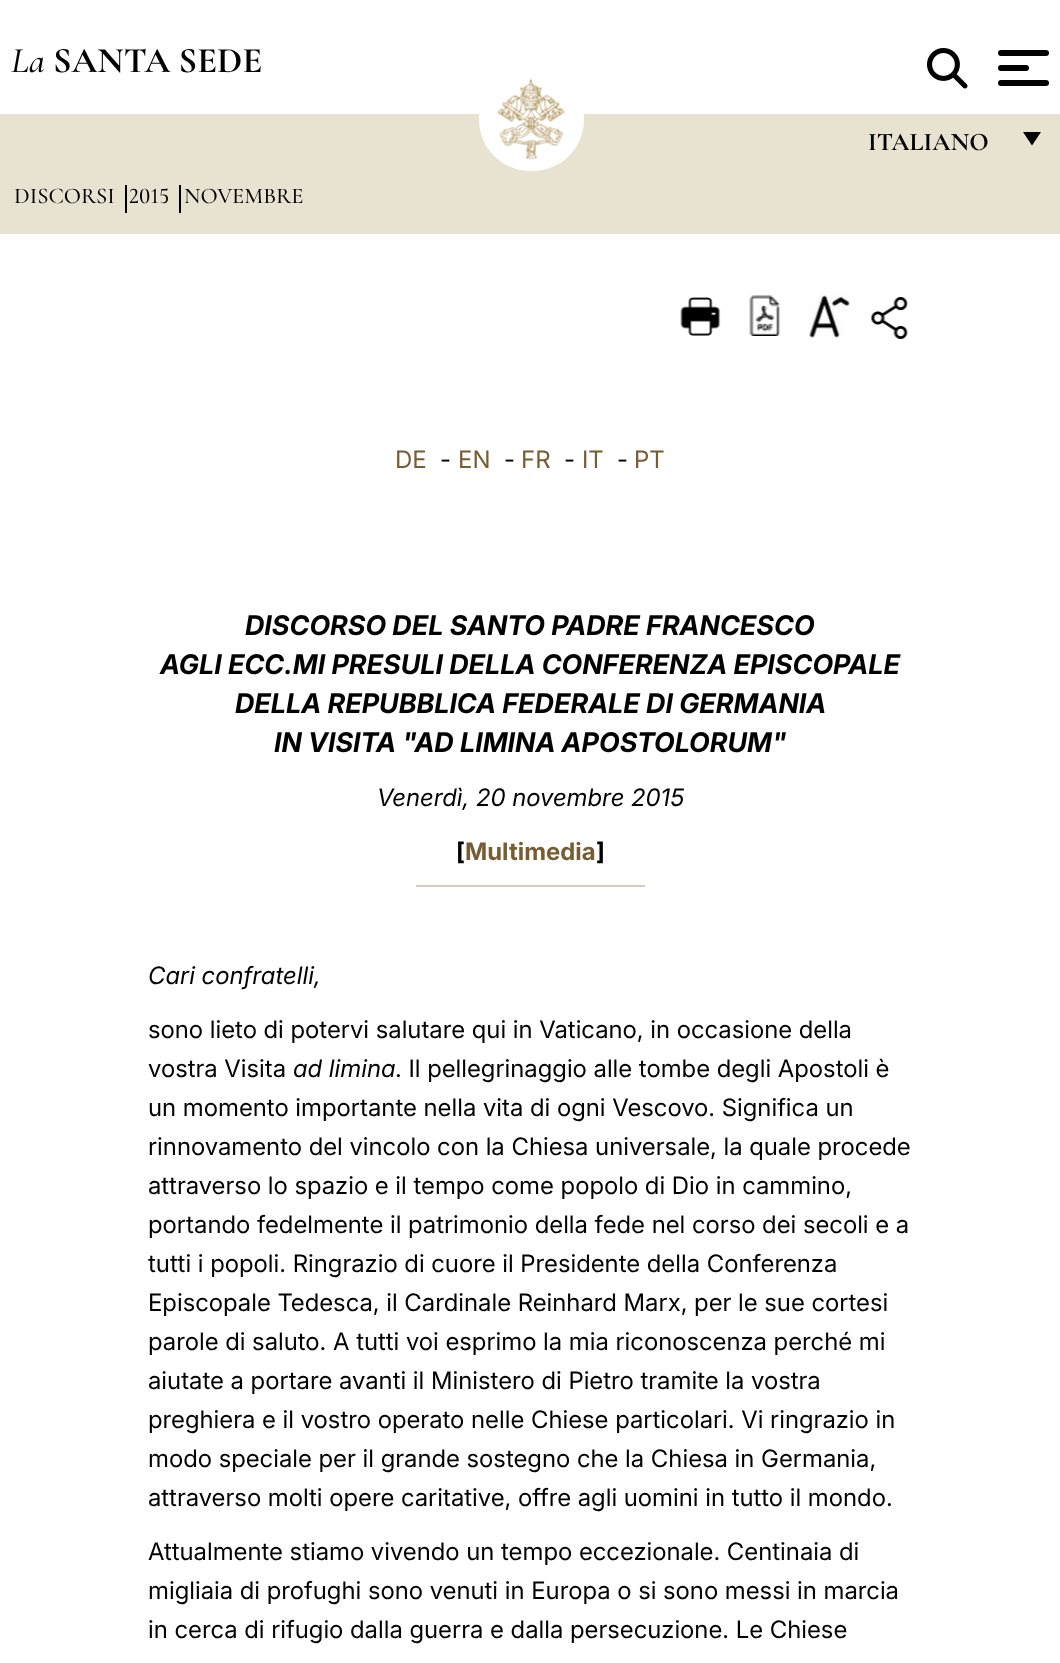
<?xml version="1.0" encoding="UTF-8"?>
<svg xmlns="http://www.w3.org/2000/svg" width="1060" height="1663">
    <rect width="100%" height="100%" fill="#FFFFFF"/>
    <text x="11" y="72" font-family="Cormorant Garamond" font-size="36" font-weight="500" font-style="italic" fill="#000000">La</text>
    <text x="53" y="72" font-family="Cormorant Garamond" font-size="36" font-weight="700" fill="#000000">SANTA SEDE</text>
    <rect x="0" y="114" width="1060" height="120" fill="#E8E2D1"/>
    <rect x="479" y="68" width="105" height="103" rx="51.5" fill="#FFFFFF"/>
    <image x="497" y="79" width="68" height="81" href="img_01.png"/>
    <image x="927" y="48" width="41" height="41" href="img_02.png"/>
    <rect x="998" y="50" width="51" height="6" rx="3" fill="#000000"/>
    <rect x="998" y="65" width="31" height="6" rx="3" fill="#000000"/>
    <rect x="998" y="80" width="51" height="6" rx="3" fill="#000000"/>
    <text x="868" y="150" font-family="Cormorant Garamond" font-size="25.5" font-weight="700" fill="#000000">ITALIANO</text>
    <path d="M 1023 132 H 1041 L 1032 145.5 Z" fill="#000000"/>
    <text x="14" y="203" font-family="Cormorant Garamond" font-size="22.5" font-weight="500" fill="#000000">DISCORSI</text>
    <rect x="125" y="185" width="2" height="28" fill="#000000"/>
    <text x="129" y="203" font-family="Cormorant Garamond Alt" font-size="22.5" font-weight="500" fill="#000000">2015</text>
    <rect x="179" y="185" width="2" height="28" fill="#000000"/>
    <text x="184" y="203" font-family="Cormorant Garamond" font-size="22.5" font-weight="500" fill="#000000">NOVEMBRE</text>
    <image x="680" y="297" width="41" height="39" href="img_03.png"/>
    <image x="749" y="295" width="32" height="41" href="img_04.png"/>
    <image x="809" y="295" width="41" height="43" href="img_05.png"/>
    <image x="871" y="297" width="37" height="42" href="img_06.png"/>
    <text x="395" y="468" font-family="Inter" font-size="24" fill="#765E32">DE</text>
    <text x="440" y="468" font-family="'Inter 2'" font-size="24" fill="#000000">-</text>
    <text x="458" y="468" font-family="Inter" font-size="24" fill="#765E32">EN</text>
    <text x="504" y="468" font-family="'Inter 2'" font-size="24" fill="#000000">-</text>
    <text x="521" y="468" font-family="Inter" font-size="24" fill="#765E32">FR</text>
    <text x="564" y="468" font-family="'Inter 2'" font-size="24" fill="#000000">-</text>
    <text x="582" y="468" font-family="'Inter 2'" font-size="24" fill="#765E32">IT</text>
    <text x="617" y="468" font-family="'Inter 2'" font-size="24" fill="#000000">-</text>
    <text x="634" y="468" font-family="'Inter 2'" font-size="24" fill="#765E32">PT</text>
    <text x="245" y="635" font-family="Inter" font-size="27" font-weight="700" font-style="italic" fill="#000000">DISCORSO DEL SANTO PADRE FRANCESCO</text>
    <text x="160" y="674" font-family="Inter" font-size="27" font-weight="700" font-style="italic" fill="#000000">AGLI ECC.MI PRESULI DELLA CONFERENZA EPISCOPALE</text>
    <text x="235" y="713" font-family="Inter" font-size="27" font-weight="700" font-style="italic" fill="#000000">DELLA REPUBBLICA FEDERALE DI GERMANIA</text>
    <text x="274" y="752" font-family="Inter" font-size="27" font-weight="700" font-style="italic" fill="#000000">IN VISITA "AD LIMINA APOSTOLORUM"</text>
    <text x="377" y="806" font-family="Inter" font-size="24" font-style="italic" fill="#000000">Venerdì, 20 novembre 2015</text>
    <text x="456" y="860" font-family="Inter" font-size="24" font-weight="700" fill="#000000">[</text>
    <text x="465" y="860" font-family="Inter" font-size="24" font-weight="700" fill="#765E32">Multimedia</text>
    <text x="596" y="860" font-family="Inter" font-size="24" font-weight="700" fill="#000000">]</text>
    <rect x="416" y="885" width="229" height="2" fill="#D9CCBF"/>
    <text x="148" y="984" font-family="Inter" font-size="24" font-style="italic" fill="#000000">Cari confratelli,</text>
    <text font-family="'Inter 2'" font-size="24" fill="#000000">
        <tspan x="148" y="1038">sono lieto di potervi salutare qui in Vaticano, in occasione della</tspan>
        <tspan x="148" y="1077">vostra Visita</tspan>
    </text>
    <text x="293" y="1077" font-family="Inter" font-size="24" font-style="italic" fill="#000000">ad limina</text>
    <text x="395" y="1077" font-family="'Inter 2'" font-size="24" fill="#000000">. Il pellegrinaggio alle tombe degli Apostoli è</text>
    <text font-family="'Inter 2'" font-size="24" fill="#000000">
        <tspan x="148" y="1116">un momento importante nella vita di ogni Vescovo. Significa un</tspan>
        <tspan x="148" y="1155">rinnovamento del vincolo con la Chiesa universale, la quale procede</tspan>
        <tspan x="148" y="1194">attraverso lo spazio e il tempo come popolo di Dio in cammino,</tspan>
        <tspan x="148" y="1233">portando fedelmente il patrimonio della fede nel corso dei secoli e a</tspan>
        <tspan x="148" y="1272">tutti i popoli. Ringrazio di cuore il Presidente della Conferenza</tspan>
        <tspan x="148" y="1311">Episcopale Tedesca, il Cardinale Reinhard Marx, per le sue cortesi</tspan>
        <tspan x="148" y="1350">parole di saluto. A tutti voi esprimo la mia riconoscenza perché mi</tspan>
        <tspan x="148" y="1389">aiutate a portare avanti il Ministero di Pietro tramite la vostra</tspan>
        <tspan x="148" y="1428">preghiera e il vostro operato nelle Chiese particolari. Vi ringrazio in</tspan>
        <tspan x="148" y="1467">modo speciale per il grande sostegno che la Chiesa in Germania,</tspan>
        <tspan x="148" y="1506">attraverso molti opere caritative, offre agli uomini in tutto il mondo.</tspan>
    </text>
    <text font-family="'Inter 2'" font-size="24" fill="#000000">
        <tspan x="148" y="1560">Attualmente stiamo vivendo un tempo eccezionale. Centinaia di</tspan>
        <tspan x="148" y="1599">migliaia di profughi sono venuti in Europa o si sono messi in marcia</tspan>
        <tspan x="148" y="1638">in cerca di rifugio dalla guerra e dalla persecuzione. Le Chiese</tspan>
    </text>
</svg>
